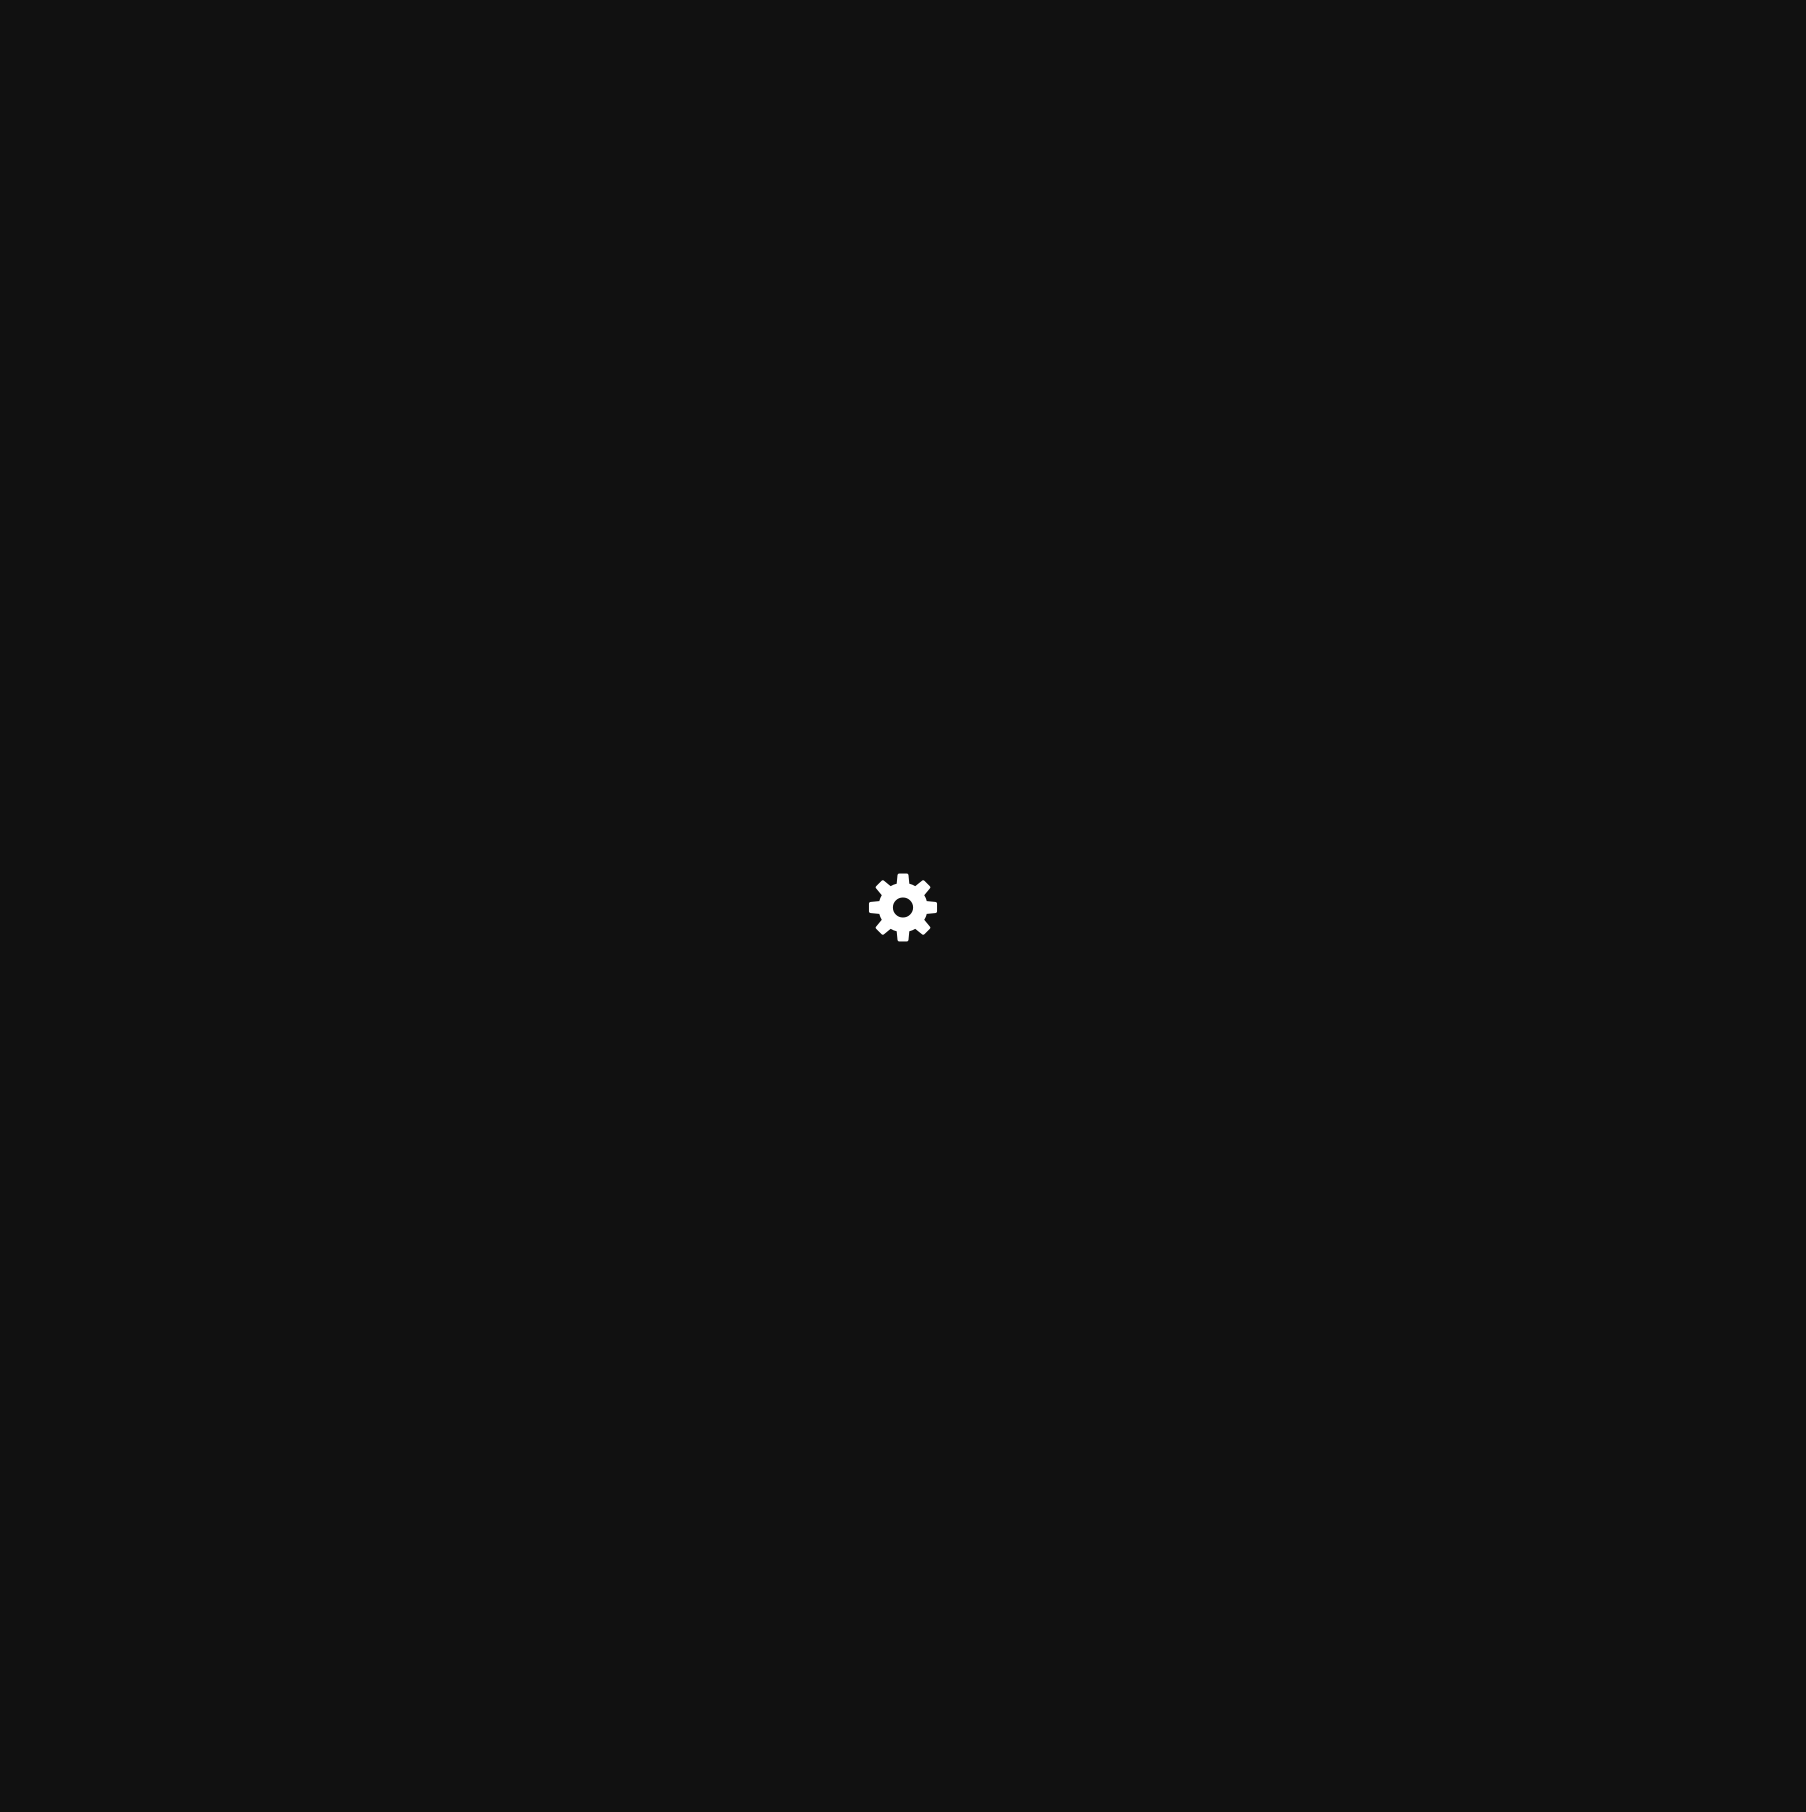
<?xml version="1.0" encoding="UTF-8"?>
<svg xmlns="http://www.w3.org/2000/svg" width="1806" height="1812">
    <rect width="100%" height="100%" fill="#111111"/>
    <image x="868" y="873" width="70" height="69" href="img_01.png"/>
</svg>
